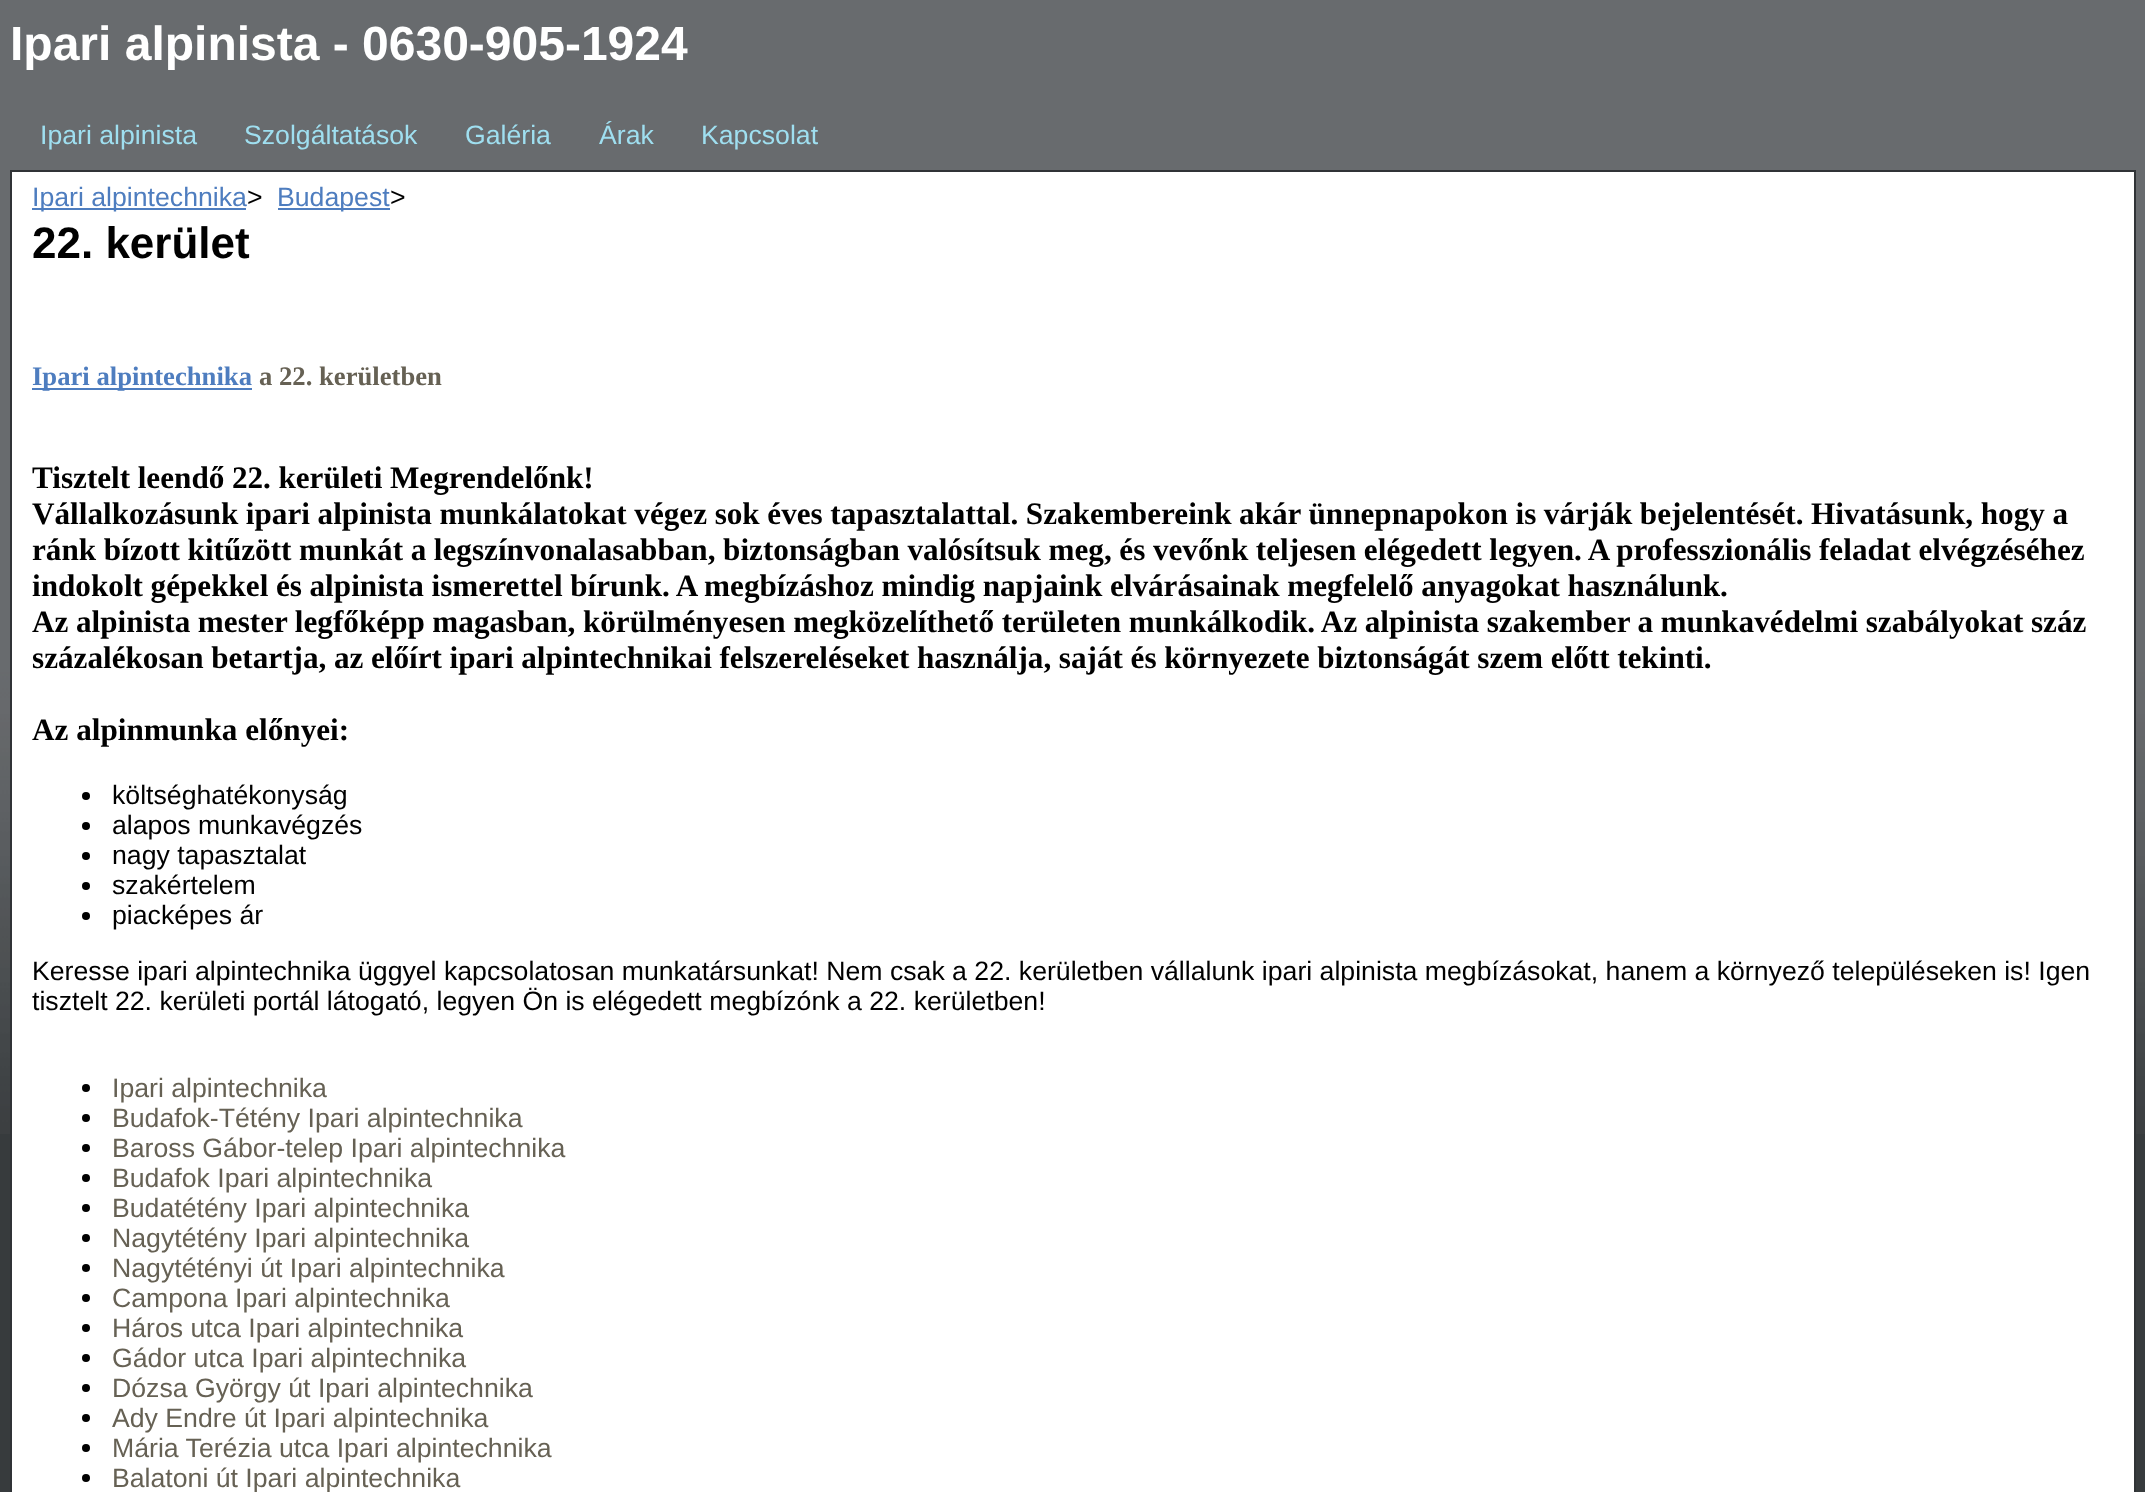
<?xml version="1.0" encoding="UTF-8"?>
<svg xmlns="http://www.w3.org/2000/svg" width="2145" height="1492">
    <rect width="100%" height="100%" fill="#373B3D"/>
    <image x="0" y="0" width="2145" height="1134" href="img_01.png"/>
    <text x="10" y="60" font-family="Liberation Sans" font-size="48" font-weight="700" fill="#FFFFFF">Ipari alpinista - 0630-905-1924</text>
    <text x="40" y="144" font-family="Liberation Sans" font-size="26.67" fill="#9FDFF0">Ipari alpinista</text>
    <text x="244" y="144" font-family="Liberation Sans" font-size="26.67" fill="#9FDFF0">Szolgáltatások</text>
    <text x="465" y="144" font-family="Liberation Sans" font-size="26.67" fill="#9FDFF0">Galéria</text>
    <text x="599" y="144" font-family="Liberation Sans" font-size="26.67" fill="#9FDFF0">Árak</text>
    <text x="701" y="144" font-family="Liberation Sans" font-size="26.67" fill="#9FDFF0">Kapcsolat</text>
    <rect x="11" y="171" width="2124" height="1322" fill="#FFFFFF" stroke="#303336" stroke-width="2"/>
    <rect x="32" y="208" width="214" height="2" fill="#4E7DBF"/>
    <text x="32" y="206" font-family="Liberation Sans" font-size="26.67" fill="#4E7DBF">Ipari alpintechnika</text>
    <text x="247" y="206" font-family="Liberation Sans" font-size="26.67" fill="#000000"> &gt; </text>
    <rect x="278" y="208" width="112" height="2" fill="#4E7DBF"/>
    <text x="277" y="206" font-family="Liberation Sans" font-size="26.67" fill="#4E7DBF">Budapest</text>
    <text x="390" y="206" font-family="Liberation Sans" font-size="26.67" fill="#000000"> &gt; </text>
    <text x="32" y="258" font-family="Liberation Sans" font-size="44" font-weight="700" fill="#000000">22. kerület</text>
    <rect x="32" y="388" width="220" height="2" fill="#4E7DBF"/>
    <text x="32" y="385" font-family="Liberation Serif" font-size="26.67" font-weight="700" fill="#4E7DBF">Ipari alpintechnika</text>
    <text x="259" y="385" font-family="Liberation Serif" font-size="26.67" font-weight="700" fill="#666154">a 22. kerületben</text>
    <text font-family="Liberation Serif" font-size="31.2" font-weight="700" fill="#000000">
        <tspan x="32" y="488" word-spacing="-0.25">Tisztelt leendő 22. kerületi Megrendelőnk!</tspan>
        <tspan x="32" y="524" word-spacing="-0.2">Vállalkozásunk ipari alpinista munkálatokat végez sok éves tapasztalattal. Szakembereink akár ünnepnapokon is várják bejelentését. Hivatásunk, hogy a</tspan>
        <tspan x="32" y="560" word-spacing="-0.2">ránk bízott kitűzött munkát a legszínvonalasabban, biztonságban valósítsuk meg, és vevőnk teljesen elégedett legyen. A professzionális feladat elvégzéséhez</tspan>
        <tspan x="32" y="596" word-spacing="-0.2">indokolt gépekkel és alpinista ismerettel bírunk. A megbízáshoz mindig napjaink elvárásainak megfelelő anyagokat használunk.</tspan>
        <tspan x="32" y="632" word-spacing="-0.25">Az alpinista mester legfőképp magasban, körülményesen megközelíthető területen munkálkodik. Az alpinista szakember a munkavédelmi szabályokat száz</tspan>
        <tspan x="32" y="668" word-spacing="-0.2">százalékosan betartja, az előírt ipari alpintechnikai felszereléseket használja, saját és környezete biztonságát szem előtt tekinti.</tspan>
    </text>
    <text x="32" y="740" font-family="Liberation Serif" font-size="31.2" font-weight="700" fill="#000000">Az alpinmunka előnyei:</text>
    <circle cx="86" cy="796" r="4" fill="#000000"/>
    <text x="112" y="804" font-family="Liberation Sans" font-size="26.67" fill="#000000">költséghatékonyság</text>
    <circle cx="86" cy="826" r="4" fill="#000000"/>
    <text x="112" y="834" font-family="Liberation Sans" font-size="26.67" fill="#000000">alapos munkavégzés</text>
    <circle cx="86" cy="856" r="4" fill="#000000"/>
    <text x="112" y="864" font-family="Liberation Sans" font-size="26.67" fill="#000000">nagy tapasztalat</text>
    <circle cx="86" cy="886" r="4" fill="#000000"/>
    <text x="112" y="894" font-family="Liberation Sans" font-size="26.67" fill="#000000">szakértelem</text>
    <circle cx="86" cy="916" r="4" fill="#000000"/>
    <text x="112" y="924" font-family="Liberation Sans" font-size="26.67" fill="#000000">piacképes ár</text>
    <text font-family="Liberation Sans" font-size="26.67" fill="#000000">
        <tspan x="32" y="980">Keresse ipari alpintechnika üggyel kapcsolatosan munkatársunkat! Nem csak a 22. kerületben vállalunk ipari alpinista megbízásokat, hanem a környező településeken is! Igen</tspan>
        <tspan x="32" y="1010">tisztelt 22. kerületi portál látogató, legyen Ön is elégedett megbízónk a 22. kerületben!</tspan>
    </text>
    <circle cx="86" cy="1088" r="4" fill="#000000"/>
    <text x="112" y="1097" font-family="Liberation Sans" font-size="26.67" fill="#666154">Ipari alpintechnika</text>
    <circle cx="86" cy="1118" r="4" fill="#000000"/>
    <text x="112" y="1127" font-family="Liberation Sans" font-size="26.67" fill="#666154">Budafok-Tétény Ipari alpintechnika</text>
    <circle cx="86" cy="1148" r="4" fill="#000000"/>
    <text x="112" y="1157" font-family="Liberation Sans" font-size="26.67" fill="#666154">Baross Gábor-telep Ipari alpintechnika</text>
    <circle cx="86" cy="1178" r="4" fill="#000000"/>
    <text x="112" y="1187" font-family="Liberation Sans" font-size="26.67" fill="#666154">Budafok Ipari alpintechnika</text>
    <circle cx="86" cy="1208" r="4" fill="#000000"/>
    <text x="112" y="1217" font-family="Liberation Sans" font-size="26.67" fill="#666154">Budatétény Ipari alpintechnika</text>
    <circle cx="86" cy="1238" r="4" fill="#000000"/>
    <text x="112" y="1247" font-family="Liberation Sans" font-size="26.67" fill="#666154">Nagytétény Ipari alpintechnika</text>
    <circle cx="86" cy="1268" r="4" fill="#000000"/>
    <text x="112" y="1277" font-family="Liberation Sans" font-size="26.67" fill="#666154">Nagytétényi út Ipari alpintechnika</text>
    <circle cx="86" cy="1298" r="4" fill="#000000"/>
    <text x="112" y="1307" font-family="Liberation Sans" font-size="26.67" fill="#666154">Campona Ipari alpintechnika</text>
    <circle cx="86" cy="1328" r="4" fill="#000000"/>
    <text x="112" y="1337" font-family="Liberation Sans" font-size="26.67" fill="#666154">Háros utca Ipari alpintechnika</text>
    <circle cx="86" cy="1358" r="4" fill="#000000"/>
    <text x="112" y="1367" font-family="Liberation Sans" font-size="26.67" fill="#666154">Gádor utca Ipari alpintechnika</text>
    <circle cx="86" cy="1388" r="4" fill="#000000"/>
    <text x="112" y="1397" font-family="Liberation Sans" font-size="26.67" fill="#666154">Dózsa György út Ipari alpintechnika</text>
    <circle cx="86" cy="1418" r="4" fill="#000000"/>
    <text x="112" y="1427" font-family="Liberation Sans" font-size="26.67" fill="#666154">Ady Endre út Ipari alpintechnika</text>
    <circle cx="86" cy="1448" r="4" fill="#000000"/>
    <text x="112" y="1457" font-family="Liberation Sans" font-size="26.67" fill="#666154">Mária Terézia utca Ipari alpintechnika</text>
    <circle cx="86" cy="1478" r="4" fill="#000000"/>
    <text x="112" y="1487" font-family="Liberation Sans" font-size="26.67" fill="#666154">Balatoni út Ipari alpintechnika</text>
</svg>
